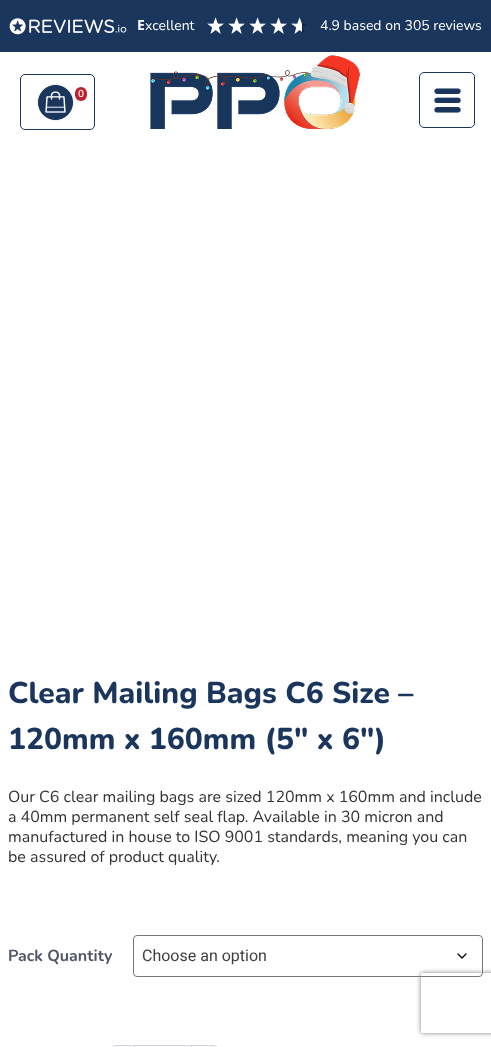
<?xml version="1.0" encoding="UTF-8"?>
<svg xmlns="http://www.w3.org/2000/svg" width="491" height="1047">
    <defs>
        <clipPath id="clip1"><path d="M 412 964 H 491 V 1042 H 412 Z M 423 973 H 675 C 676 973 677 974 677 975 V 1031 C 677 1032 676 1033 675 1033 H 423 C 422 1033 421 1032 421 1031 V 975 C 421 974 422 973 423 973 Z" clip-rule="evenodd"/></clipPath>
        <filter id="blur1" x="-50%" y="-200%" width="200%" height="500%"><feGaussianBlur stdDeviation="2.5"/></filter>
    </defs>
    <rect width="100%" height="100%" fill="#FFFFFF"/>
    <rect x="0" y="0" width="491" height="52" fill="#1B365D"/>
    <image x="9" y="18" width="118" height="17" href="img_01.png"/>
    <text x="137" y="30" font-family="Noto Sans" font-size="14" font-weight="700" fill="#FFFFFF">E</text>
    <text x="145" y="30" font-family="Nunito" font-size="14" fill="#FFFFFF">xcellent</text>
    <image x="207" y="17" width="17" height="17" href="img_02.png"/>
    <image x="228" y="17" width="17" height="17" href="img_02.png"/>
    <image x="249" y="17" width="17" height="17" href="img_02.png"/>
    <image x="270" y="17" width="17" height="17" href="img_02.png"/>
    <image x="291" y="17" width="17" height="17" href="img_03.png"/>
    <text x="320" y="30" font-family="Nunito" font-size="14" fill="#FFFFFF">4.9 based on 305 reviews</text>
    <rect x="20.5" y="74.5" width="74" height="55" rx="4.5" fill="none" stroke="#1B365D"/>
    <image x="37" y="84" width="37" height="37" href="img_04.png"/>
    <rect x="75" y="87" width="12" height="14" rx="6" fill="#BC212D"/>
    <text x="78" y="97" font-family="Nunito" font-size="10" font-weight="600" fill="#FFFFFF">0</text>
    <image x="150" y="55" width="210" height="74" href="img_05.png"/>
    <image x="434" y="88" width="27" height="25" href="img_06.png"/>
    <rect x="419.5" y="72.5" width="55" height="55" rx="4.5" fill="none" stroke="#1B365D"/>
    <text font-family="Nunito" font-size="30" font-weight="800" fill="#1B365D">
        <tspan x="8" y="703">Clear Mailing Bags C6 Size –</tspan>
        <tspan x="8" y="749">120mm x 160mm (5″ x 6″)</tspan>
    </text>
    <text font-family="Nunito" font-size="16" fill="#333333">
        <tspan x="8" y="802">Our C6 clear mailing bags are sized 120mm x 160mm and include</tspan>
        <tspan x="8" y="822">a 40mm permanent self seal flap. Available in 30 micron and</tspan>
        <tspan x="8" y="842">manufactured in house to ISO 9001 standards, meaning you can</tspan>
        <tspan x="8" y="862">be assured of product quality.</tspan>
    </text>
    <text x="8" y="961" font-family="Nunito" font-size="16" font-weight="700" fill="#4F5665">Pack Quantity</text>
    <path d="M 458 954 L 462 958 L 466 954" fill="none" stroke="#000000" stroke-width="1.3" stroke-linecap="round" stroke-linejoin="round"/>
    <rect x="133.5" y="935.5" width="349" height="41" rx="3.5" fill="none" stroke="#767676"/>
    <text x="142" y="961" font-family="Roboto" font-size="16" fill="#404040">Choose an option</text>
    <path d="M 116 1046 H 134 V 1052 H 116 C 113 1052 111 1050 111 1047 V 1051 C 111 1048 113 1046 116 1046 Z" fill="#F6F8FA"/>
    <path d="M 116 1045 H 134 V 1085 H 116 C 113 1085 110 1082 110 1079 V 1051 C 110 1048 113 1045 116 1045 Z M 116 1046 H 134 V 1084 H 116 C 113 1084 111 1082 111 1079 V 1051 C 111 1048 113 1046 116 1046 Z" fill="#D3D6E0" fill-rule="evenodd"/>
    <rect x="134.5" y="1045.5" width="57" height="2" fill="#F6F8FA" stroke="#D3D6E0"/>
    <path d="M 192 1046 H 213 C 216 1046 218 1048 218 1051 V 1047 C 218 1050 216 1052 213 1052 H 192 Z" fill="#F6F8FA"/>
    <path d="M 192 1045 H 213 C 216 1045 219 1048 219 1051 V 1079 C 219 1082 216 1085 213 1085 H 192 Z M 192 1046 H 213 C 216 1046 218 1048 218 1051 V 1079 C 218 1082 216 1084 213 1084 H 192 Z" fill="#D3D6E0" fill-rule="evenodd"/>
    <g clip-path="url(#clip1)">
        <rect x="421" y="973" width="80" height="60" rx="2" fill="#808080" filter="url(#blur1)"/>
    </g>
</svg>
